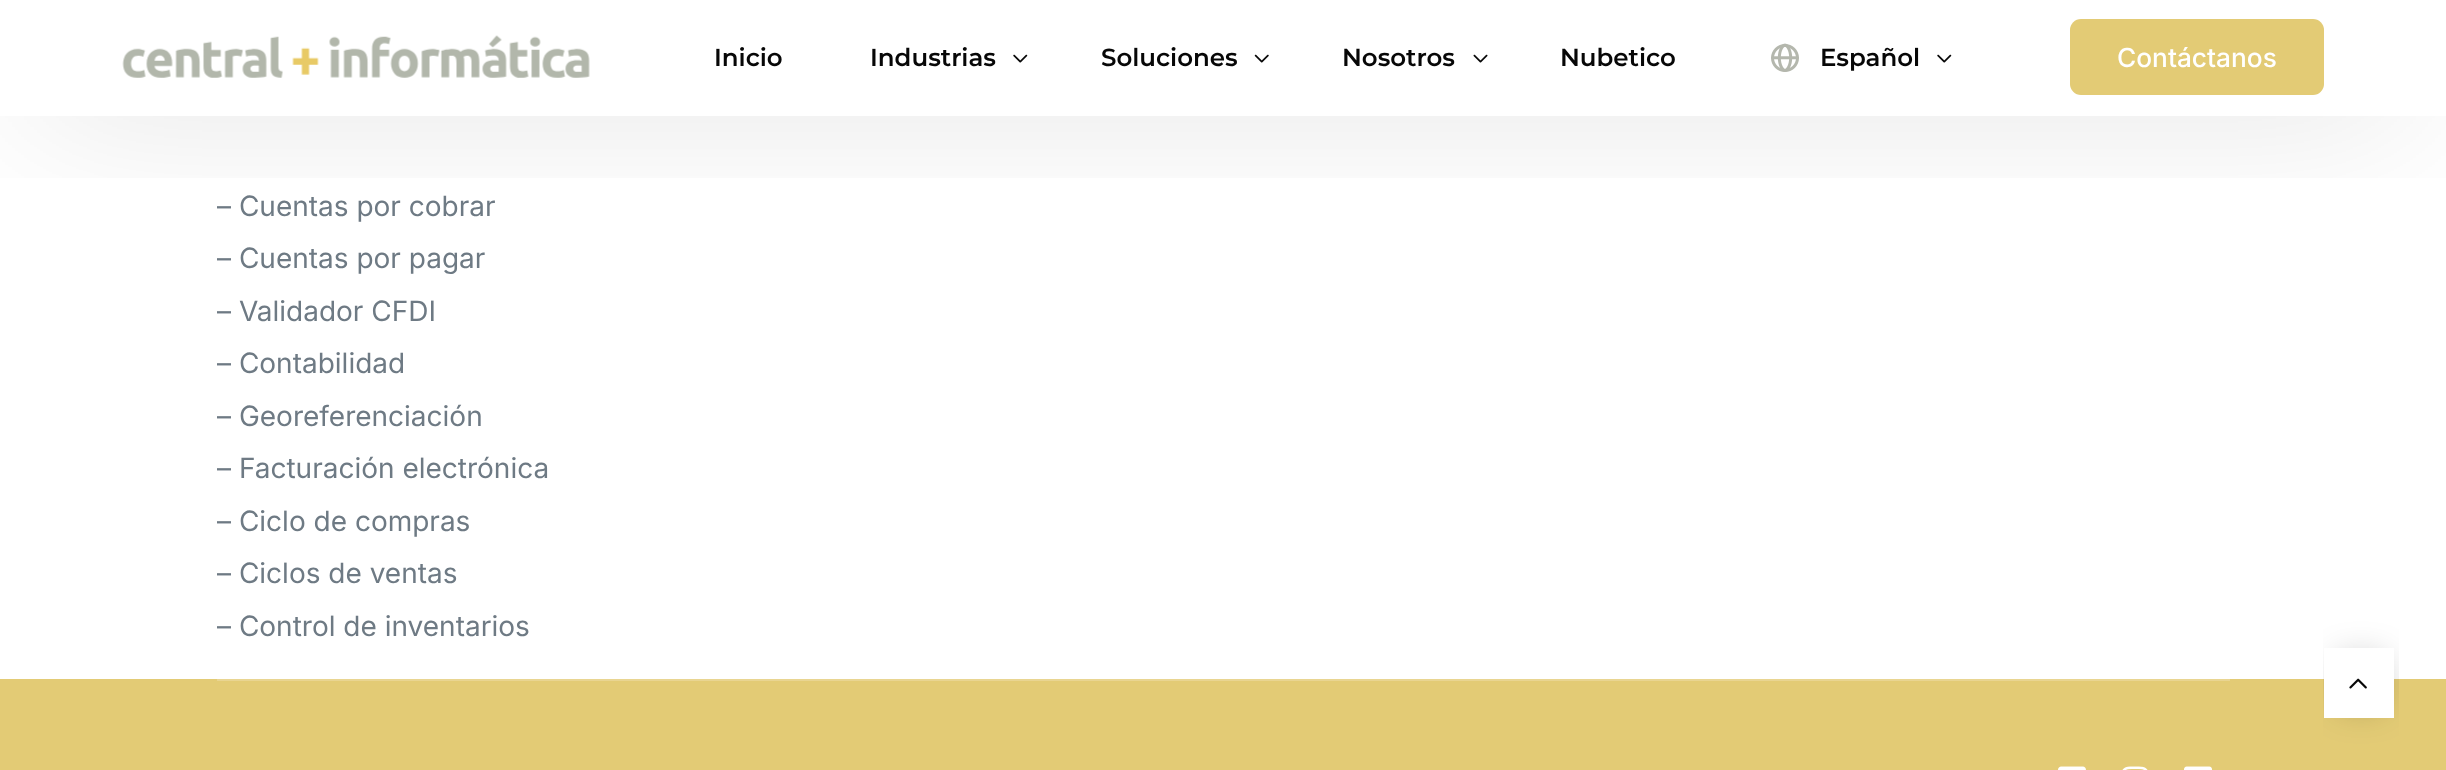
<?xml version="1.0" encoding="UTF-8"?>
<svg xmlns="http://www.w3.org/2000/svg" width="2446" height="770">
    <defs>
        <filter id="blur1" x="-50%" y="-200%" width="200%" height="500%"><feGaussianBlur stdDeviation="79"/></filter>
        <filter id="blur2" x="-50%" y="-200%" width="200%" height="500%"><feGaussianBlur stdDeviation="19"/></filter>
    </defs>
    <rect width="100%" height="100%" fill="#FFFFFF"/>
    <rect x="32" y="40" width="2376" height="46" fill="#000000" fill-opacity="0.25" filter="url(#blur1)"/>
    <rect x="0" y="0" width="2446" height="116" fill="#FFFFFF"/>
    <image x="122" y="35" width="468" height="43" href="img_01.png"/>
    <text x="714" y="66" font-family="Montserrat" font-size="24.5" font-weight="600" fill="#070707">Inicio</text>
    <text x="870" y="66" font-family="Montserrat" font-size="24.5" font-weight="600" fill="#070707">Industrias</text>
    <image x="1013" y="54" width="15" height="9" href="img_02.png"/>
    <text x="1101" y="66" font-family="Montserrat" font-size="24.5" font-weight="600" fill="#070707">Soluciones</text>
    <image x="1254" y="54" width="15" height="9" href="img_03.png"/>
    <text x="1342" y="66" font-family="Montserrat" font-size="24.5" font-weight="600" fill="#070707">Nosotros</text>
    <image x="1473" y="54" width="15" height="9" href="img_04.png"/>
    <text x="1560" y="66" font-family="Montserrat" font-size="24.5" font-weight="600" fill="#070707">Nubetico</text>
    <image x="1771" y="43" width="28" height="29" href="img_05.png"/>
    <text x="1820" y="66" font-family="Montserrat" font-size="24.5" font-weight="600" fill="#070707">Español</text>
    <image x="1937" y="54" width="15" height="9" href="img_02.png"/>
    <rect x="2070" y="19" width="254" height="76" rx="11" fill="#E3CB75"/>
    <text x="2117" y="67" font-family="Inter" font-size="26.25" font-weight="500" fill="#FFFFFF">Contáctanos</text>
    <text font-family="Inter" font-size="28" fill="#6E7A84">
        <tspan x="217" y="216">– Cuentas por cobrar</tspan>
        <tspan x="217" y="268">– Cuentas por pagar</tspan>
        <tspan x="217" y="321">– Validador CFDI</tspan>
        <tspan x="217" y="373">– Contabilidad</tspan>
        <tspan x="217" y="426">– Georeferenciación</tspan>
        <tspan x="217" y="478">– Facturación electrónica</tspan>
        <tspan x="217" y="531">– Ciclo de compras</tspan>
        <tspan x="217" y="583">– Ciclos de ventas</tspan>
        <tspan x="217" y="636">– Control de inventarios</tspan>
    </text>
    <rect x="0" y="679" width="2446" height="91" fill="#E3CB75"/>
    <rect x="217" y="679" width="2013" height="2" fill="#E9D591"/>
    <image x="2058" y="766" width="28" height="4" href="img_06.png"/>
    <image x="2122" y="766" width="26" height="4" href="img_07.png"/>
    <image x="2184" y="766" width="28" height="4" href="img_08.png"/>
    <rect x="2342" y="663" width="38" height="39" fill="#000000" fill-opacity="0.4" filter="url(#blur2)"/>
    <rect x="2324" y="648" width="70" height="70" fill="#FFFFFF"/>
    <image x="2349" y="678" width="18" height="11" href="img_09.png"/>
</svg>
